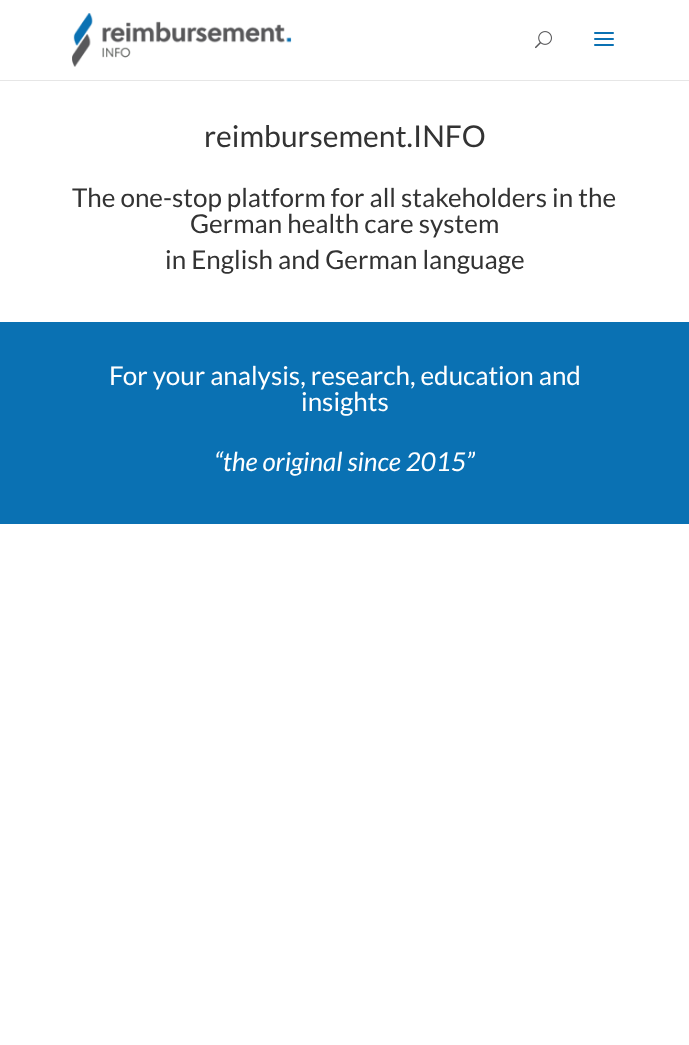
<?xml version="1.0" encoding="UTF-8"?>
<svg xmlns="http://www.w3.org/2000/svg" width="689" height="1045">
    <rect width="100%" height="100%" fill="#FFFFFF"/>
    <rect x="0" y="80" width="689" height="1" fill="#E6E6E6"/>
    <image x="72" y="13" width="220" height="54" href="img_01.png"/>
    <image x="535" y="31" width="17" height="18" href="img_02.png"/>
    <image x="594" y="32" width="20" height="14" href="img_03.png"/>
    <text x="204" y="147" font-family="Lato" font-size="30" fill="#333333">reimbursement.INFO</text>
    <text x="72" y="207" font-family="Lato" font-size="26" fill="#333333">The one-stop platform for all stakeholders in the</text>
    <text x="190" y="233" font-family="Lato" font-size="26" fill="#333333">German health care system</text>
    <text x="165" y="269" font-family="Lato" font-size="26" fill="#333333">in English and German language</text>
    <rect x="0" y="322" width="689" height="202" fill="#0A71B3"/>
    <text x="109" y="385" font-family="Lato" font-size="26" fill="#FFFFFF">For your analysis, research, education and</text>
    <text x="301" y="411" font-family="Lato" font-size="26" fill="#FFFFFF">insights</text>
    <text x="214" y="471" font-family="Lato" font-size="26" font-style="italic" fill="#FFFFFF">“the original since 2015”</text>
</svg>
